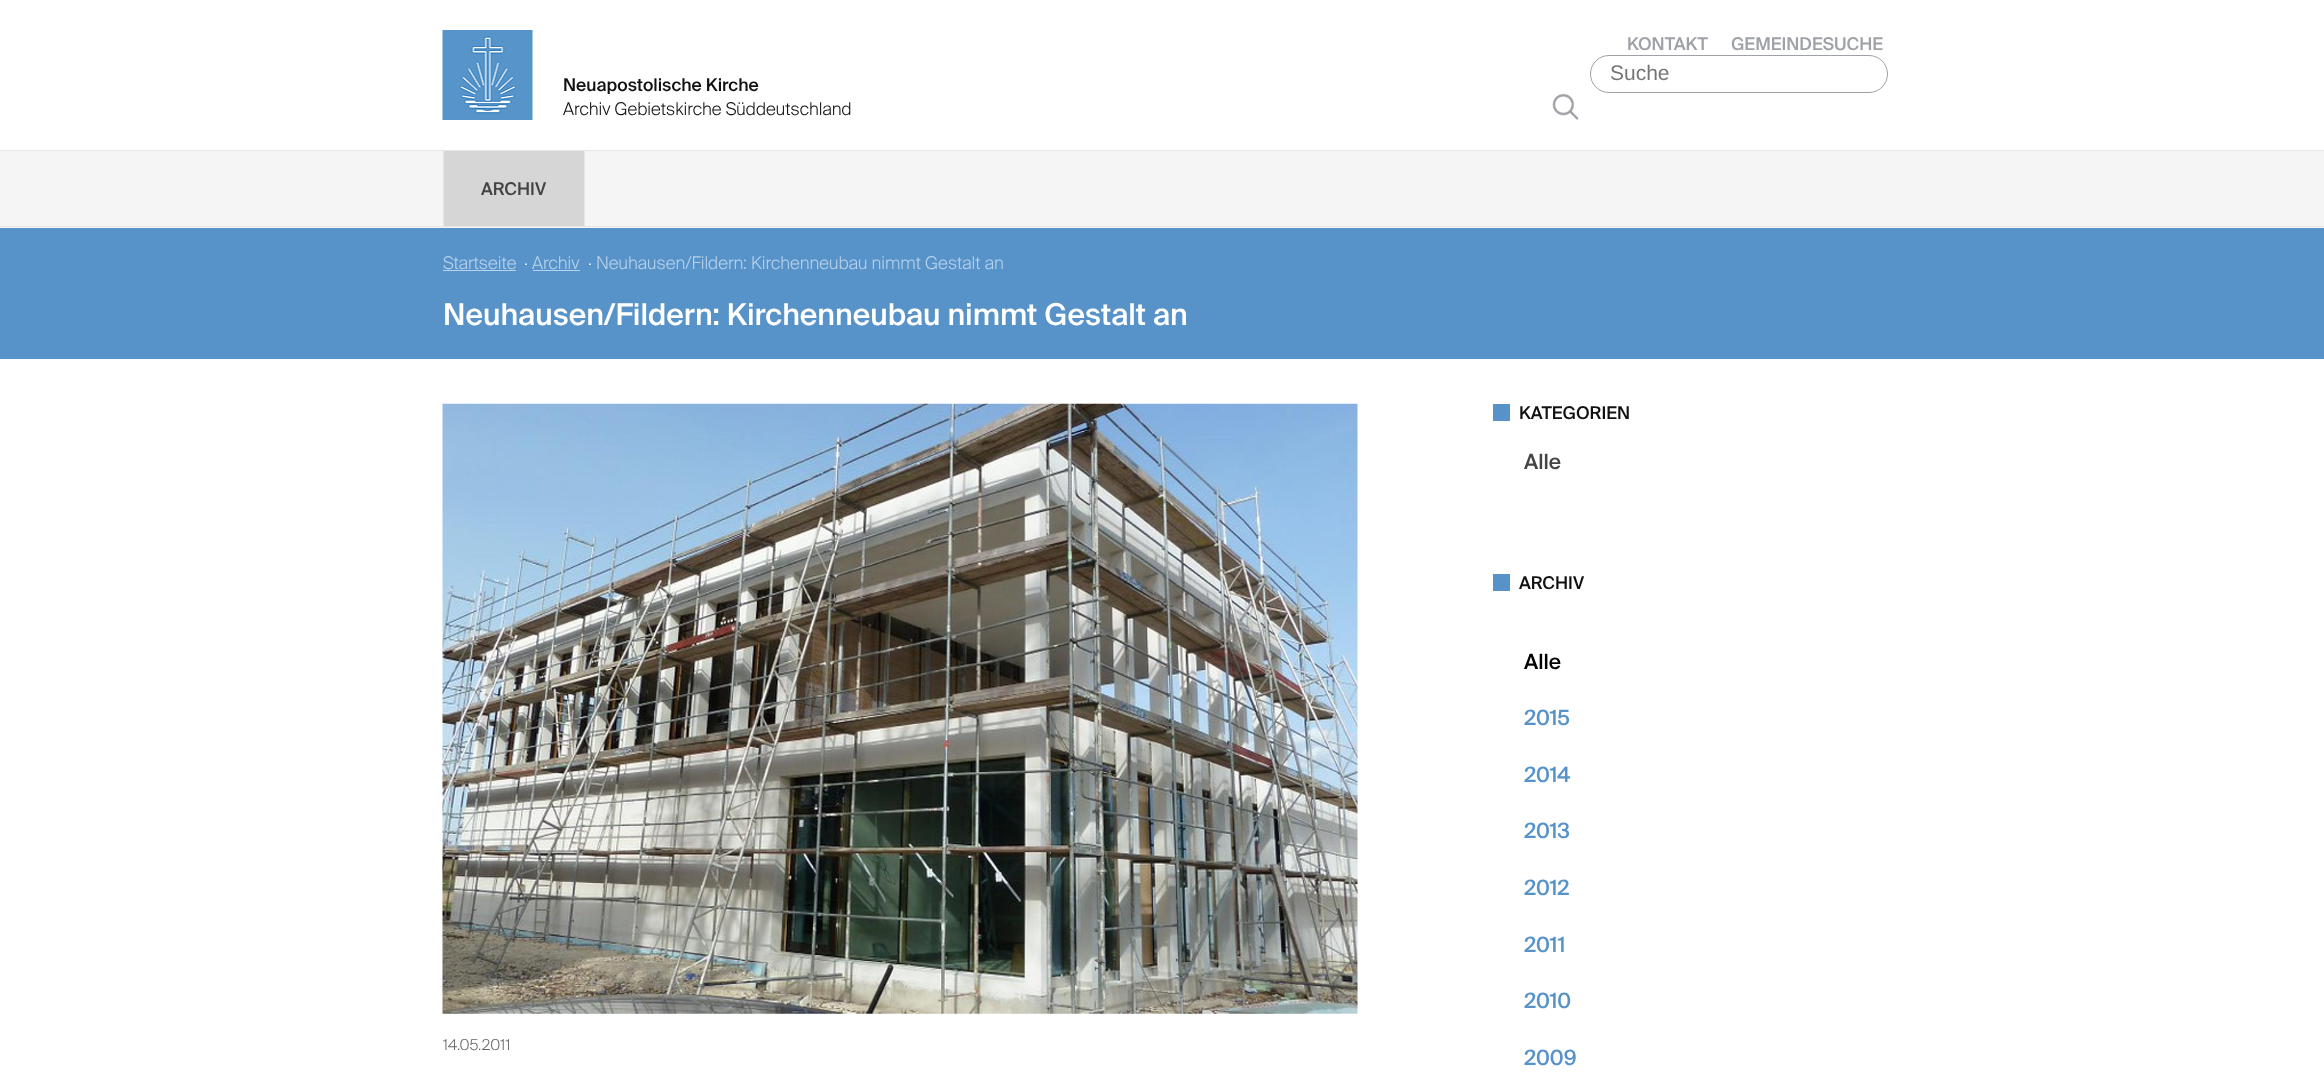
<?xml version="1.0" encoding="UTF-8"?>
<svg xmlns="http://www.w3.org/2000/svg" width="2324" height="1078">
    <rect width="100%" height="100%" fill="#FFFFFF"/>
    <text x="1627" y="50" font-family="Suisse" font-size="17.5" font-weight="500" fill="#9EA1A6">KONTAKT</text>
    <text x="1731" y="50" font-family="Suisse" font-size="17.5" font-weight="500" fill="#9EA1A6">GEMEINDESUCHE</text>
    <rect x="1590.5" y="55.5" width="297" height="37" rx="18.5" fill="none" stroke="#9EA1A6"/>
    <text x="1610" y="80" font-family="Liberation Sans" font-size="21" fill="#757575">Suche</text>
    <image x="1552" y="93" width="27" height="27" href="img_01.png"/>
    <image x="442" y="30" width="91" height="90" href="img_02.png"/>
    <text x="563" y="91" font-family="Suisse" font-size="17.5" font-weight="500" fill="#111111">Neuapostolische Kirche</text>
    <text x="563" y="115" font-family="Suisse" font-size="17.5" font-weight="300" fill="#111111">Archiv Gebietskirche Süddeutschland</text>
    <rect x="0" y="151" width="2324" height="77" fill="#F5F5F5"/>
    <rect x="0" y="150" width="2324" height="1" fill="#E6E6E6"/>
    <rect x="0" y="226" width="2324" height="1" fill="#E6E6E6"/>
    <rect x="584" y="151" width="1" height="75" fill="#E6E6E6"/>
    <rect x="443" y="151" width="1" height="75" fill="#E6E6E6"/>
    <rect x="444" y="151" width="140" height="75" fill="#D6D6D6"/>
    <text x="481" y="195" font-family="Suisse" font-size="17.5" font-weight="500" fill="#444444">ARCHIV</text>
    <rect x="0" y="228" width="2324" height="131" fill="#5793C9"/>
    <text x="443" y="269" font-family="Suisse" font-size="17.5" font-weight="300" fill="#B7D2EB">Startseite</text>
    <rect x="443" y="270" width="73" height="1" fill="#B7D2EB"/>
    <text x="524" y="269" font-family="Suisse" font-size="17.5" font-weight="300" fill="#FFFFFF">·</text>
    <text x="532" y="269" font-family="Suisse" font-size="17.5" font-weight="300" fill="#B7D2EB">Archiv</text>
    <rect x="533" y="270" width="47" height="1" fill="#B7D2EB"/>
    <text x="588" y="269" font-family="Suisse" font-size="17.5" font-weight="300" fill="#FFFFFF">·</text>
    <text x="596" y="269" font-family="Suisse" font-size="17.5" font-weight="300" fill="#B7D2EB">Neuhausen/Fildern: Kirchenneubau nimmt Gestalt an</text>
    <text x="443" y="325" font-family="Suisse" font-size="30" font-weight="500" fill="#FFFFFF">Neuhausen/Fildern: Kirchenneubau nimmt Gestalt an</text>
    <image x="442" y="403" width="916" height="611" href="img_03.png"/>
    <text x="443" y="1050" font-family="Suisse" font-size="15" font-weight="300" fill="#666666">14.05.2011</text>
    <rect x="1493" y="404" width="17" height="17" fill="#5793C9"/>
    <text x="1519" y="419" font-family="Suisse" font-size="17.5" font-weight="500" fill="#111111">KATEGORIEN</text>
    <text x="1524" y="469" font-family="Suisse" font-size="21" font-weight="500" fill="#444444">Alle</text>
    <rect x="1493" y="574" width="17" height="17" fill="#5793C9"/>
    <text x="1519" y="589" font-family="Suisse" font-size="17.5" font-weight="500" fill="#111111">ARCHIV</text>
    <text x="1524" y="669" font-family="Suisse" font-size="21" font-weight="500" fill="#000000">Alle</text>
    <text x="1524" y="725" font-family="Suisse" font-size="21" font-weight="500" fill="#5793C9">2015</text>
    <text x="1524" y="782" font-family="Suisse" font-size="21" font-weight="500" fill="#5793C9">2014</text>
    <text x="1524" y="838" font-family="Suisse" font-size="21" font-weight="500" fill="#5793C9">2013</text>
    <text x="1524" y="895" font-family="Suisse" font-size="21" font-weight="500" fill="#5793C9">2012</text>
    <text x="1524" y="952" font-family="Suisse" font-size="21" font-weight="500" fill="#5793C9">2011</text>
    <text x="1524" y="1008" font-family="Suisse" font-size="21" font-weight="500" fill="#5793C9">2010</text>
    <text x="1524" y="1065" font-family="Suisse" font-size="21" font-weight="500" fill="#5793C9">2009</text>
</svg>
